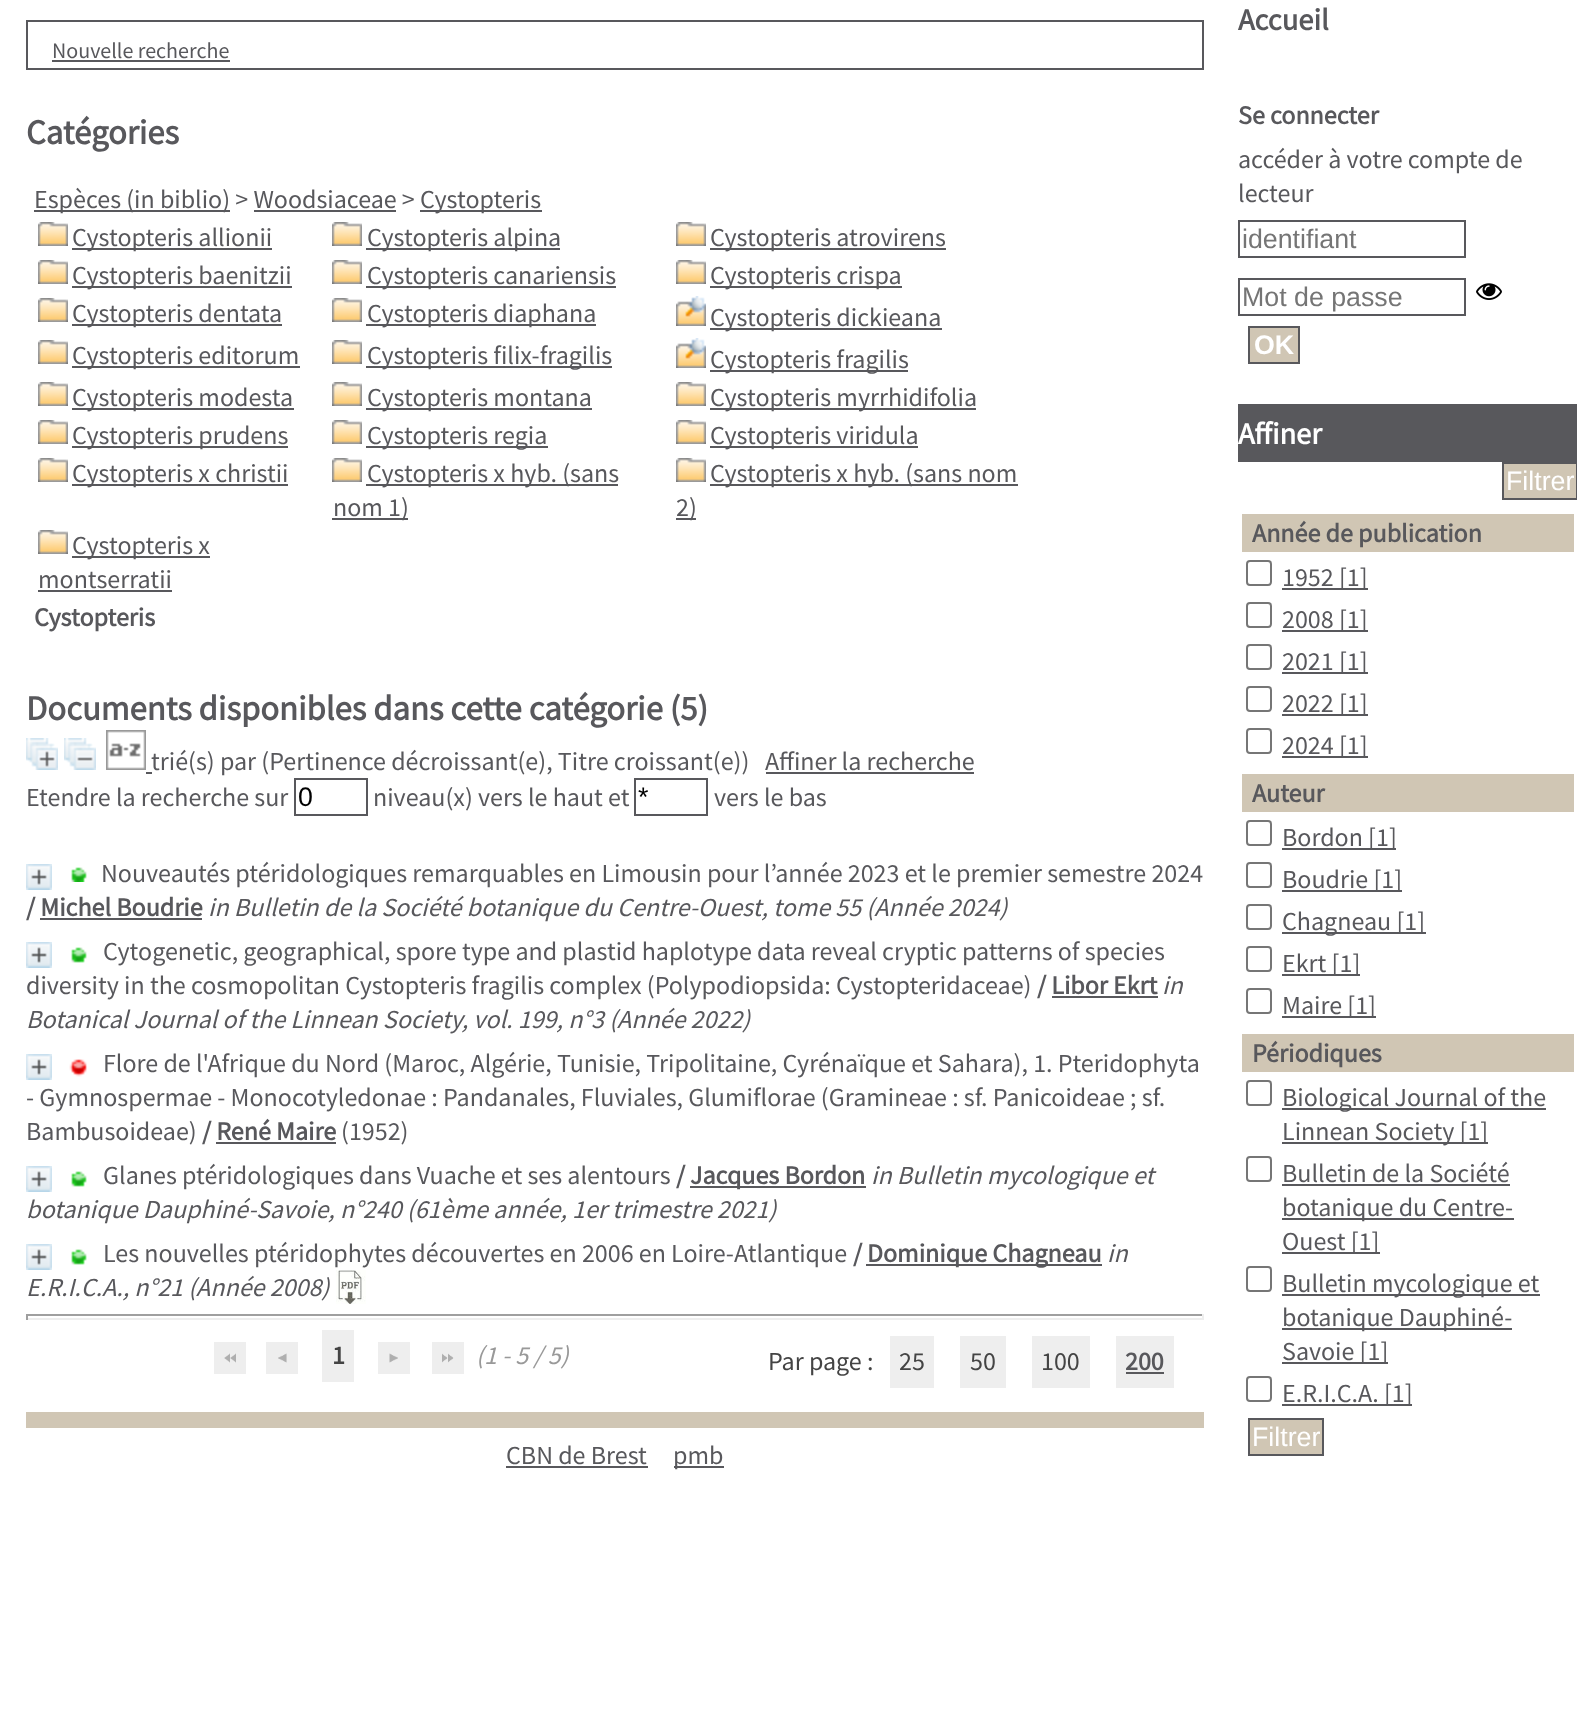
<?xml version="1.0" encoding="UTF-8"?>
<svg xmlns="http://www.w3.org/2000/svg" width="1577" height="1733">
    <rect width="100%" height="100%" fill="#FFFFFF"/>
    <rect x="27" y="21" width="1176" height="48" fill="none" stroke="#58585C" stroke-width="2"/>
    <text x="52" y="58" font-family="Source Sans Pro" font-size="22" fill="#58585C">Nouvelle recherche</text>
    <rect x="52" y="60" width="178" height="2" fill="#58585C"/>
    <text x="26" y="144" font-family="Source Sans Pro" font-size="34.7" font-weight="700" fill="#58585C">Catégories</text>
    <rect x="34" y="210" width="196" height="2" fill="#58585C"/>
    <text x="34" y="208" font-family="Source Sans Pro" font-size="26" fill="#58585C">Espèces (in biblio) &gt; Woodsiaceae &gt;</text>
    <rect x="254" y="210" width="142" height="2" fill="#58585C"/>
    <rect x="420" y="210" width="122" height="2" fill="#58585C"/>
    <text x="420" y="208" font-family="Source Sans Pro" font-size="26" fill="#58585C">Cystopteris</text>
    <image x="38" y="222" width="30" height="24" href="img_01.png"/>
    <rect x="72" y="248" width="200" height="2" fill="#58585C"/>
    <text x="72" y="246" font-family="Source Sans Pro" font-size="26" fill="#58585C">Cystopteris allionii</text>
    <image x="332" y="222" width="30" height="24" href="img_01.png"/>
    <rect x="366" y="248" width="194" height="2" fill="#58585C"/>
    <text x="367" y="246" font-family="Source Sans Pro" font-size="26" fill="#58585C">Cystopteris alpina</text>
    <image x="676" y="222" width="30" height="24" href="img_01.png"/>
    <rect x="710" y="248" width="236" height="2" fill="#58585C"/>
    <text x="710" y="246" font-family="Source Sans Pro" font-size="26" fill="#58585C">Cystopteris atrovirens</text>
    <image x="38" y="260" width="30" height="24" href="img_01.png"/>
    <rect x="72" y="286" width="220" height="2" fill="#58585C"/>
    <text x="72" y="284" font-family="Source Sans Pro" font-size="26" fill="#58585C">Cystopteris baenitzii</text>
    <image x="332" y="260" width="30" height="24" href="img_01.png"/>
    <rect x="366" y="286" width="250" height="2" fill="#58585C"/>
    <text x="367" y="284" font-family="Source Sans Pro" font-size="26" fill="#58585C">Cystopteris canariensis</text>
    <image x="676" y="260" width="30" height="24" href="img_01.png"/>
    <rect x="710" y="286" width="192" height="2" fill="#58585C"/>
    <text x="710" y="284" font-family="Source Sans Pro" font-size="26" fill="#58585C">Cystopteris crispa</text>
    <image x="38" y="298" width="30" height="24" href="img_01.png"/>
    <rect x="72" y="324" width="210" height="2" fill="#58585C"/>
    <text x="72" y="322" font-family="Source Sans Pro" font-size="26" fill="#58585C">Cystopteris dentata</text>
    <image x="332" y="298" width="30" height="24" href="img_01.png"/>
    <rect x="366" y="324" width="230" height="2" fill="#58585C"/>
    <text x="367" y="322" font-family="Source Sans Pro" font-size="26" fill="#58585C">Cystopteris diaphana</text>
    <image x="676" y="296" width="30" height="30" href="img_02.png"/>
    <rect x="710" y="328" width="232" height="2" fill="#58585C"/>
    <text x="710" y="326" font-family="Source Sans Pro" font-size="26" fill="#58585C">Cystopteris dickieana</text>
    <image x="38" y="340" width="30" height="24" href="img_01.png"/>
    <rect x="72" y="366" width="228" height="2" fill="#58585C"/>
    <text x="72" y="364" font-family="Source Sans Pro" font-size="26" fill="#58585C">Cystopteris editorum</text>
    <image x="332" y="340" width="30" height="24" href="img_01.png"/>
    <rect x="366" y="366" width="246" height="2" fill="#58585C"/>
    <text x="367" y="364" font-family="Source Sans Pro" font-size="26" fill="#58585C">Cystopteris filix-fragilis</text>
    <image x="676" y="338" width="30" height="30" href="img_02.png"/>
    <rect x="710" y="370" width="198" height="2" fill="#58585C"/>
    <text x="710" y="368" font-family="Source Sans Pro" font-size="26" fill="#58585C">Cystopteris fragilis</text>
    <image x="38" y="382" width="30" height="24" href="img_01.png"/>
    <rect x="72" y="408" width="222" height="2" fill="#58585C"/>
    <text x="72" y="406" font-family="Source Sans Pro" font-size="26" fill="#58585C">Cystopteris modesta</text>
    <image x="332" y="382" width="30" height="24" href="img_01.png"/>
    <rect x="366" y="408" width="226" height="2" fill="#58585C"/>
    <text x="367" y="406" font-family="Source Sans Pro" font-size="26" fill="#58585C">Cystopteris montana</text>
    <image x="676" y="382" width="30" height="24" href="img_01.png"/>
    <rect x="710" y="408" width="266" height="2" fill="#58585C"/>
    <text x="710" y="406" font-family="Source Sans Pro" font-size="26" fill="#58585C">Cystopteris myrrhidifolia</text>
    <image x="38" y="420" width="30" height="24" href="img_01.png"/>
    <rect x="72" y="446" width="216" height="2" fill="#58585C"/>
    <text x="72" y="444" font-family="Source Sans Pro" font-size="26" fill="#58585C">Cystopteris prudens</text>
    <image x="332" y="420" width="30" height="24" href="img_01.png"/>
    <rect x="366" y="446" width="182" height="2" fill="#58585C"/>
    <text x="367" y="444" font-family="Source Sans Pro" font-size="26" fill="#58585C">Cystopteris regia</text>
    <image x="676" y="420" width="30" height="24" href="img_01.png"/>
    <rect x="710" y="446" width="208" height="2" fill="#58585C"/>
    <text x="710" y="444" font-family="Source Sans Pro" font-size="26" fill="#58585C">Cystopteris viridula</text>
    <image x="38" y="458" width="30" height="24" href="img_01.png"/>
    <rect x="72" y="484" width="216" height="2" fill="#58585C"/>
    <text x="72" y="482" font-family="Source Sans Pro" font-size="26" fill="#58585C">Cystopteris x christii</text>
    <image x="332" y="458" width="30" height="24" href="img_01.png"/>
    <rect x="366" y="484" width="252" height="2" fill="#58585C"/>
    <text x="367" y="482" font-family="Source Sans Pro" font-size="26" fill="#58585C">Cystopteris x hyb. (sans</text>
    <rect x="332" y="518" width="76" height="2" fill="#58585C"/>
    <text x="333" y="516" font-family="Source Sans Pro" font-size="26" fill="#58585C">nom 1)</text>
    <image x="676" y="458" width="30" height="24" href="img_01.png"/>
    <rect x="710" y="484" width="308" height="2" fill="#58585C"/>
    <text x="710" y="482" font-family="Source Sans Pro" font-size="26" fill="#58585C">Cystopteris x hyb. (sans nom</text>
    <rect x="676" y="518" width="20" height="2" fill="#58585C"/>
    <text x="676" y="516" font-family="Source Sans Pro" font-size="26" fill="#58585C">2)</text>
    <image x="38" y="530" width="30" height="24" href="img_01.png"/>
    <rect x="72" y="556" width="138" height="2" fill="#58585C"/>
    <text x="72" y="554" font-family="Source Sans Pro" font-size="26" fill="#58585C">Cystopteris x</text>
    <text x="38" y="588" font-family="Source Sans Pro" font-size="26" fill="#58585C">montserratii</text>
    <rect x="38" y="590" width="134" height="2" fill="#58585C"/>
    <text x="34" y="626" font-family="Source Sans Pro" font-size="26" font-weight="700" fill="#58585C">Cystopteris</text>
    <text x="26" y="720" font-family="Source Sans Pro" font-size="34.7" font-weight="700" fill="#58585C">Documents disponibles dans cette catégorie (5)</text>
    <image x="26" y="738" width="32" height="32" href="img_03.png"/>
    <image x="64" y="738" width="32" height="32" href="img_04.png"/>
    <image x="106" y="730" width="40" height="40" href="img_05.png"/>
    <rect x="146" y="772" width="6" height="2" fill="#58585C"/>
    <text x="151" y="770" font-family="Source Sans Pro" font-size="26" fill="#58585C">trié(s) par (Pertinence décroissant(e), Titre croissant(e))</text>
    <text x="765" y="770" font-family="Source Sans Pro" font-size="26" fill="#58585C">Affiner la recherche</text>
    <rect x="766" y="772" width="208" height="2" fill="#58585C"/>
    <text x="26" y="806" font-family="Source Sans Pro" font-size="26" fill="#58585C">Etendre la recherche sur</text>
    <rect x="295" y="779" width="72" height="36" fill="none" stroke="#58585C" stroke-width="2"/>
    <text x="298" y="806" font-family="Liberation Sans" font-size="26.75" fill="#000000">0</text>
    <text x="373" y="806" font-family="Source Sans Pro" font-size="26" fill="#58585C">niveau(x) vers le haut et</text>
    <rect x="635" y="779" width="72" height="36" fill="none" stroke="#58585C" stroke-width="2"/>
    <text x="638" y="806" font-family="Liberation Sans" font-size="26.75" fill="#000000">*</text>
    <text x="714" y="806" font-family="Source Sans Pro" font-size="26" fill="#58585C">vers le bas</text>
    <image x="71" y="867" width="16" height="15" href="img_06.png"/>
    <text x="101" y="882" font-family="Source Sans Pro" font-size="26" fill="#58585C">Nouveautés ptéridologiques remarquables en Limousin pour l’année 2023 et le premier semestre 2024</text>
    <text x="26" y="916" font-family="Source Sans Pro" font-size="26" font-weight="700" fill="#58585C">/ Michel Boudrie</text>
    <rect x="40" y="918" width="162" height="2" fill="#58585C"/>
    <text x="208" y="916" font-family="Source Sans Pro" font-size="26" font-style="italic" fill="#58585C">in Bulletin de la Société botanique du Centre-Ouest, tome 55 (Année 2024)</text>
    <image x="26" y="864" width="26" height="26" href="img_07.png"/>
    <image x="26" y="942" width="26" height="26" href="img_07.png"/>
    <image x="71" y="947" width="16" height="16" href="img_08.png"/>
    <text x="103" y="960" font-family="Source Sans Pro" font-size="26" fill="#58585C">Cytogenetic, geographical, spore type and plastid haplotype data reveal cryptic patterns of species</text>
    <text x="26" y="994" font-family="Source Sans Pro" font-size="26" fill="#58585C">diversity in the cosmopolitan Cystopteris fragilis complex (Polypodiopsida: Cystopteridaceae)</text>
    <text x="1037" y="994" font-family="Source Sans Pro" font-size="26" font-weight="700" fill="#58585C">/ Libor Ekrt</text>
    <rect x="1052" y="996" width="106" height="2" fill="#58585C"/>
    <text x="1162" y="994" font-family="Source Sans Pro" font-size="26" font-style="italic" fill="#58585C">in</text>
    <text x="26" y="1028" font-family="Source Sans Pro" font-size="26" font-style="italic" fill="#58585C">Botanical Journal of the Linnean Society, vol. 199, n°3 (Année 2022)</text>
    <image x="26" y="1054" width="26" height="26" href="img_07.png"/>
    <image x="69" y="1059" width="18" height="18" href="img_09.png"/>
    <text x="103" y="1072" font-family="Source Sans Pro" font-size="26" fill="#58585C">Flore de l'Afrique du Nord (Maroc, Algérie, Tunisie, Tripolitaine, Cyrénaïque et Sahara), 1. Pteridophyta</text>
    <text font-family="Source Sans Pro" font-size="26" fill="#58585C">
        <tspan x="26" y="1106">- Gymnospermae - Monocotyledonae : Pandanales, Fluviales, Glumiflorae (Gramineae : sf. Panicoideae ; sf.</tspan>
        <tspan x="26" y="1140">Bambusoideae)</tspan>
    </text>
    <text x="202" y="1140" font-family="Source Sans Pro" font-size="26" font-weight="700" fill="#58585C">/ René Maire</text>
    <rect x="216" y="1142" width="120" height="2" fill="#58585C"/>
    <text x="341" y="1140" font-family="Source Sans Pro" font-size="26" fill="#58585C">(1952)</text>
    <image x="26" y="1166" width="26" height="26" href="img_07.png"/>
    <image x="71" y="1171" width="16" height="16" href="img_08.png"/>
    <text x="103" y="1184" font-family="Source Sans Pro" font-size="26" fill="#58585C">Glanes ptéridologiques dans Vuache et ses alentours</text>
    <text x="676" y="1184" font-family="Source Sans Pro" font-size="26" font-weight="700" fill="#58585C">/</text>
    <rect x="690" y="1186" width="176" height="2" fill="#58585C"/>
    <text x="690" y="1184" font-family="Source Sans Pro" font-size="26" font-weight="700" fill="#58585C">Jacques Bordon</text>
    <text x="871" y="1184" font-family="Source Sans Pro" font-size="26" font-style="italic" fill="#58585C">in Bulletin mycologique et</text>
    <text x="26" y="1218" font-family="Source Sans Pro" font-size="26" font-style="italic" fill="#58585C">botanique Dauphiné-Savoie, n°240 (61ème année, 1er trimestre 2021)</text>
    <image x="26" y="1244" width="26" height="26" href="img_07.png"/>
    <image x="71" y="1249" width="16" height="16" href="img_08.png"/>
    <text x="103" y="1262" font-family="Source Sans Pro" font-size="26" fill="#58585C">Les nouvelles ptéridophytes découvertes en 2006 en Loire-Atlantique</text>
    <text x="853" y="1262" font-family="Source Sans Pro" font-size="26" font-weight="700" fill="#58585C">/</text>
    <rect x="866" y="1264" width="236" height="2" fill="#58585C"/>
    <text x="867" y="1262" font-family="Source Sans Pro" font-size="26" font-weight="700" fill="#58585C">Dominique Chagneau</text>
    <text x="1107" y="1262" font-family="Source Sans Pro" font-size="26" font-style="italic" fill="#58585C">in</text>
    <text x="26" y="1296" font-family="Source Sans Pro" font-size="26" font-style="italic" fill="#58585C">E.R.I.C.A., n°21 (Année 2008)</text>
    <image x="336" y="1270" width="30" height="34" href="img_10.png"/>
    <rect x="26" y="1314" width="1178" height="2" fill="#9F9F9F"/>
    <rect x="1202" y="1314" width="2" height="6" fill="#EEEEEE"/>
    <rect x="26" y="1318" width="1178" height="2" fill="#EEEEEE"/>
    <rect x="26" y="1314" width="2" height="6" fill="#9F9F9F"/>
    <rect x="214" y="1342" width="32" height="32" fill="#EEEEEE"/>
    <image x="224" y="1353" width="12" height="10" href="img_11.png"/>
    <rect x="266" y="1342" width="32" height="32" fill="#EEEEEE"/>
    <image x="278" y="1353" width="9" height="10" href="img_12.png"/>
    <rect x="322" y="1330" width="32" height="52" fill="#EEEEEE"/>
    <text x="332" y="1364" font-family="Source Sans Pro" font-size="26" font-weight="700" fill="#444444">1</text>
    <rect x="378" y="1342" width="32" height="32" fill="#EEEEEE"/>
    <image x="389" y="1353" width="9" height="10" href="img_13.png"/>
    <rect x="432" y="1342" width="32" height="32" fill="#EEEEEE"/>
    <image x="442" y="1353" width="12" height="10" href="img_14.png"/>
    <text x="476" y="1364" font-family="Source Sans Pro" font-size="26" font-style="italic" fill="#999999">(1 - 5 / 5)</text>
    <text x="768" y="1370" font-family="Source Sans Pro" font-size="26" fill="#444444">Par page :</text>
    <rect x="890" y="1336" width="44" height="52" fill="#EEEEEE"/>
    <text x="899" y="1370" font-family="Source Sans Pro" font-size="26" fill="#444444">25</text>
    <rect x="960" y="1336" width="46" height="52" fill="#EEEEEE"/>
    <text x="970" y="1370" font-family="Source Sans Pro" font-size="26" fill="#444444">50</text>
    <rect x="1032" y="1336" width="58" height="52" fill="#EEEEEE"/>
    <text x="1041" y="1370" font-family="Source Sans Pro" font-size="26" fill="#444444">100</text>
    <rect x="1116" y="1336" width="58" height="52" fill="#EEEEEE"/>
    <text x="1125" y="1370" font-family="Source Sans Pro" font-size="26" font-weight="700" fill="#58585C">200</text>
    <rect x="1126" y="1372" width="38" height="2" fill="#58585C"/>
    <rect x="26" y="1412" width="1178" height="16" fill="#D0C6B4"/>
    <text x="506" y="1464" font-family="Source Sans Pro" font-size="26" fill="#58585C">CBN de Brest</text>
    <rect x="506" y="1466" width="142" height="2" fill="#58585C"/>
    <rect x="674" y="1466" width="50" height="2" fill="#58585C"/>
    <text x="673" y="1464" font-family="Source Sans Pro" font-size="26" fill="#58585C">pmb</text>
    <text x="1238" y="30" font-family="Source Sans Pro" font-size="30.5" font-weight="700" fill="#58585C">Accueil</text>
    <text x="1238" y="124" font-family="Source Sans Pro" font-size="26" font-weight="700" fill="#58585C">Se connecter</text>
    <text font-family="Source Sans Pro" font-size="26" fill="#58585C">
        <tspan x="1238" y="168">accéder à votre compte de</tspan>
        <tspan x="1238" y="202">lecteur</tspan>
    </text>
    <rect x="1239" y="221" width="226" height="36" fill="none" stroke="#58585C" stroke-width="2"/>
    <text x="1242" y="248" font-family="Liberation Sans" font-size="26.75" fill="#757575">identifiant</text>
    <rect x="1239" y="279" width="226" height="36" fill="none" stroke="#58585C" stroke-width="2"/>
    <text x="1242" y="306" font-family="Liberation Sans" font-size="26.75" fill="#757575">Mot de passe</text>
    <image x="1476" y="283" width="26" height="17" href="img_15.png"/>
    <rect x="1249" y="327" width="50" height="36" fill="#D0C6B4" stroke="#58585C" stroke-width="2"/>
    <text x="1254" y="354" font-family="Liberation Sans" font-size="26.75" font-weight="700" fill="#FFFFFF">OK</text>
    <rect x="1238" y="404" width="339" height="58" fill="#58585C"/>
    <text x="1238" y="444" font-family="Source Sans Pro" font-size="30.5" font-weight="700" fill="#FFFFFF">Affiner</text>
    <rect x="1503" y="463" width="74" height="36" fill="#D0C6B4" stroke="#58585C" stroke-width="2"/>
    <text x="1506" y="490" font-family="Liberation Sans" font-size="26.75" fill="#FFFFFF">Filtrer</text>
    <rect x="1242" y="514" width="332" height="38" fill="#D0C6B4"/>
    <text x="1252" y="542" font-family="Source Sans Pro" font-size="26" font-weight="700" fill="#58585C">Année de publication</text>
    <rect x="1247" y="561" width="24" height="24" rx="3" fill="none" stroke="#767676" stroke-width="2"/>
    <rect x="1282" y="588" width="86" height="2" fill="#58585C"/>
    <text x="1282" y="586" font-family="Source Sans Pro" font-size="26" fill="#58585C">1952 [1]</text>
    <rect x="1247" y="603" width="24" height="24" rx="3" fill="none" stroke="#767676" stroke-width="2"/>
    <rect x="1282" y="630" width="86" height="2" fill="#58585C"/>
    <text x="1282" y="628" font-family="Source Sans Pro" font-size="26" fill="#58585C">2008 [1]</text>
    <rect x="1247" y="645" width="24" height="24" rx="3" fill="none" stroke="#767676" stroke-width="2"/>
    <rect x="1282" y="672" width="86" height="2" fill="#58585C"/>
    <text x="1282" y="670" font-family="Source Sans Pro" font-size="26" fill="#58585C">2021 [1]</text>
    <rect x="1247" y="687" width="24" height="24" rx="3" fill="none" stroke="#767676" stroke-width="2"/>
    <rect x="1282" y="714" width="86" height="2" fill="#58585C"/>
    <text x="1282" y="712" font-family="Source Sans Pro" font-size="26" fill="#58585C">2022 [1]</text>
    <rect x="1247" y="729" width="24" height="24" rx="3" fill="none" stroke="#767676" stroke-width="2"/>
    <rect x="1282" y="756" width="86" height="2" fill="#58585C"/>
    <text x="1282" y="754" font-family="Source Sans Pro" font-size="26" fill="#58585C">2024 [1]</text>
    <rect x="1242" y="774" width="332" height="38" fill="#D0C6B4"/>
    <text x="1252" y="802" font-family="Source Sans Pro" font-size="26" font-weight="700" fill="#58585C">Auteur</text>
    <rect x="1247" y="821" width="24" height="24" rx="3" fill="none" stroke="#767676" stroke-width="2"/>
    <rect x="1282" y="848" width="114" height="2" fill="#58585C"/>
    <text x="1282" y="846" font-family="Source Sans Pro" font-size="26" fill="#58585C">Bordon [1]</text>
    <rect x="1247" y="863" width="24" height="24" rx="3" fill="none" stroke="#767676" stroke-width="2"/>
    <rect x="1282" y="890" width="120" height="2" fill="#58585C"/>
    <text x="1282" y="888" font-family="Source Sans Pro" font-size="26" fill="#58585C">Boudrie [1]</text>
    <rect x="1247" y="905" width="24" height="24" rx="3" fill="none" stroke="#767676" stroke-width="2"/>
    <rect x="1282" y="932" width="144" height="2" fill="#58585C"/>
    <text x="1282" y="930" font-family="Source Sans Pro" font-size="26" fill="#58585C">Chagneau [1]</text>
    <rect x="1247" y="947" width="24" height="24" rx="3" fill="none" stroke="#767676" stroke-width="2"/>
    <rect x="1282" y="974" width="78" height="2" fill="#58585C"/>
    <text x="1282" y="972" font-family="Source Sans Pro" font-size="26" fill="#58585C">Ekrt [1]</text>
    <rect x="1247" y="989" width="24" height="24" rx="3" fill="none" stroke="#767676" stroke-width="2"/>
    <rect x="1282" y="1016" width="94" height="2" fill="#58585C"/>
    <text x="1282" y="1014" font-family="Source Sans Pro" font-size="26" fill="#58585C">Maire [1]</text>
    <rect x="1242" y="1034" width="332" height="38" fill="#D0C6B4"/>
    <text x="1252" y="1062" font-family="Source Sans Pro" font-size="26" font-weight="700" fill="#58585C">Périodiques</text>
    <rect x="1247" y="1081" width="24" height="24" rx="3" fill="none" stroke="#767676" stroke-width="2"/>
    <rect x="1282" y="1108" width="264" height="2" fill="#58585C"/>
    <text x="1282" y="1106" font-family="Source Sans Pro" font-size="26" fill="#58585C">Biological Journal of the</text>
    <rect x="1282" y="1142" width="206" height="2" fill="#58585C"/>
    <text x="1282" y="1140" font-family="Source Sans Pro" font-size="26" fill="#58585C">Linnean Society [1]</text>
    <rect x="1247" y="1157" width="24" height="24" rx="3" fill="none" stroke="#767676" stroke-width="2"/>
    <text x="1282" y="1182" font-family="Source Sans Pro" font-size="26" fill="#58585C">Bulletin de la Société</text>
    <rect x="1282" y="1184" width="228" height="2" fill="#58585C"/>
    <rect x="1282" y="1218" width="232" height="2" fill="#58585C"/>
    <text x="1282" y="1216" font-family="Source Sans Pro" font-size="26" fill="#58585C">botanique du Centre-</text>
    <rect x="1282" y="1252" width="98" height="2" fill="#58585C"/>
    <text x="1282" y="1250" font-family="Source Sans Pro" font-size="26" fill="#58585C">Ouest [1]</text>
    <rect x="1247" y="1267" width="24" height="24" rx="3" fill="none" stroke="#767676" stroke-width="2"/>
    <rect x="1282" y="1294" width="258" height="2" fill="#58585C"/>
    <text x="1282" y="1292" font-family="Source Sans Pro" font-size="26" fill="#58585C">Bulletin mycologique et</text>
    <rect x="1282" y="1328" width="230" height="2" fill="#58585C"/>
    <text x="1282" y="1326" font-family="Source Sans Pro" font-size="26" fill="#58585C">botanique Dauphiné-</text>
    <rect x="1282" y="1362" width="106" height="2" fill="#58585C"/>
    <text x="1282" y="1360" font-family="Source Sans Pro" font-size="26" fill="#58585C">Savoie [1]</text>
    <rect x="1247" y="1377" width="24" height="24" rx="3" fill="none" stroke="#767676" stroke-width="2"/>
    <rect x="1282" y="1404" width="130" height="2" fill="#58585C"/>
    <text x="1282" y="1402" font-family="Source Sans Pro" font-size="26" fill="#58585C">E.R.I.C.A. [1]</text>
    <rect x="1249" y="1419" width="74" height="36" fill="#D0C6B4" stroke="#58585C" stroke-width="2"/>
    <text x="1252" y="1446" font-family="Liberation Sans" font-size="26.75" fill="#FFFFFF">Filtrer</text>
</svg>
